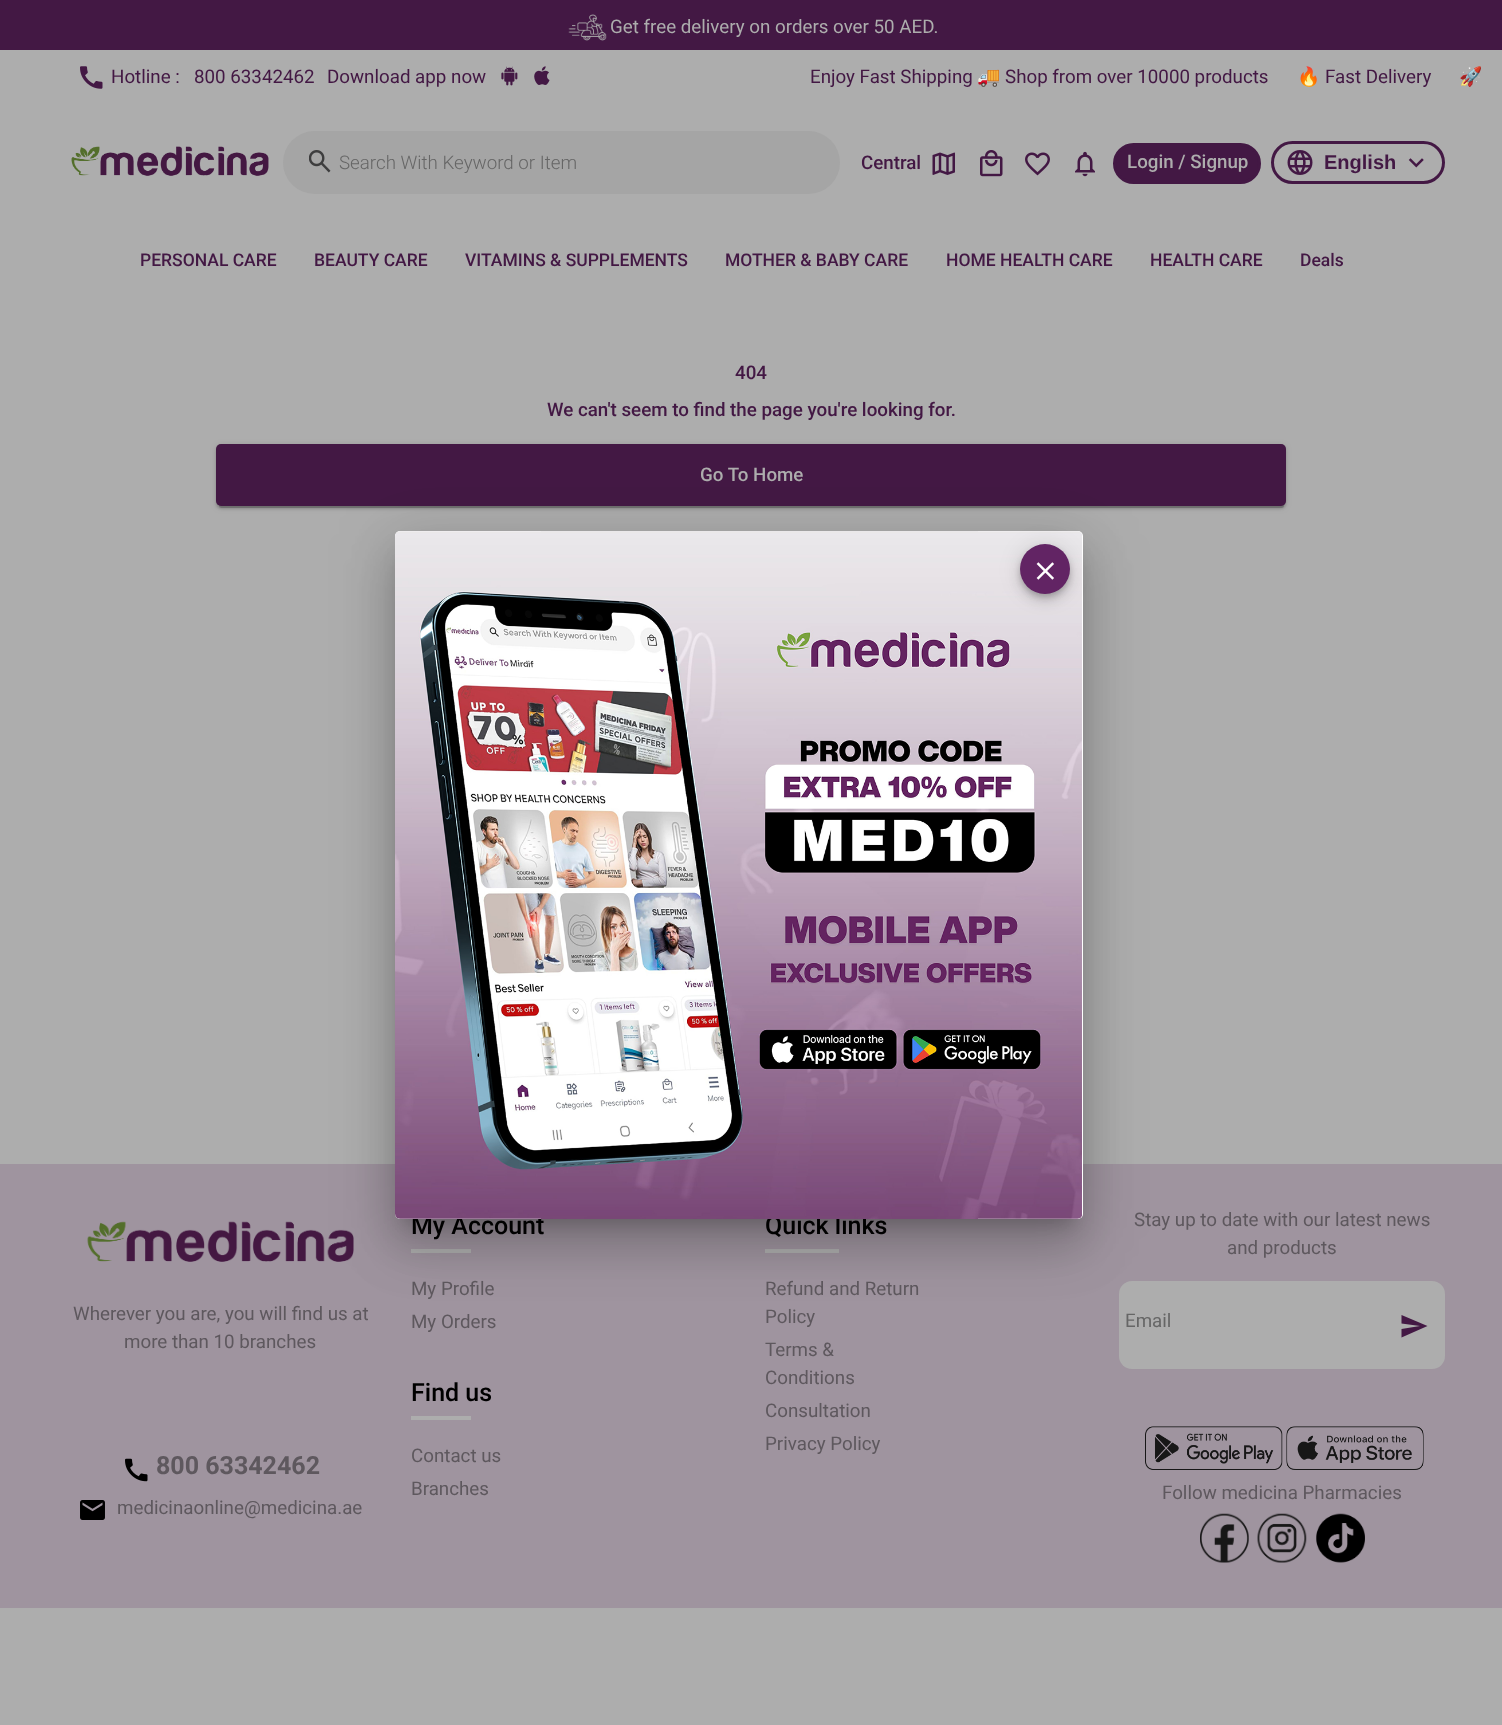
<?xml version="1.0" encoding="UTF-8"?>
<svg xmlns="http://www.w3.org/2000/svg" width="1502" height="1725">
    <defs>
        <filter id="blur1" x="-50%" y="-200%" width="200%" height="500%"><feGaussianBlur stdDeviation="3"/></filter>
        <filter id="blur2" x="-50%" y="-200%" width="200%" height="500%"><feGaussianBlur stdDeviation="1"/></filter>
        <filter id="blur3" x="-50%" y="-200%" width="200%" height="500%"><feGaussianBlur stdDeviation="0.5"/></filter>
        <filter id="blur4" x="-50%" y="-200%" width="200%" height="500%"><feGaussianBlur stdDeviation="29"/></filter>
        <filter id="blur5" x="-50%" y="-200%" width="200%" height="500%"><feGaussianBlur stdDeviation="24"/></filter>
        <filter id="blur6" x="-50%" y="-200%" width="200%" height="500%"><feGaussianBlur stdDeviation="9.5"/></filter>
        <filter id="blur7" x="-50%" y="-200%" width="200%" height="500%"><feGaussianBlur stdDeviation="11"/></filter>
        <filter id="blur8" x="-50%" y="-200%" width="200%" height="500%"><feGaussianBlur stdDeviation="6"/></filter>
    </defs>
    <rect width="100%" height="100%" fill="#ADADAD"/>
    <rect x="0" y="0" width="1502" height="50" fill="#431844"/>
    <image x="568" y="14" width="39" height="27" href="img_01.png"/>
    <text x="610" y="33" font-family="Roboto" font-size="18.75" fill="#ADADAD">Get free delivery on orders over 50 AED.</text>
    <image x="80" y="66" width="23" height="23" href="img_02.png"/>
    <text x="111" y="83" font-family="Roboto" font-size="18.75" fill="#431844">Hotline :</text>
    <text x="194" y="83" font-family="Roboto" font-size="18.75" fill="#431844">800 63342462</text>
    <text x="327" y="83" font-family="Roboto" font-size="18.75" fill="#431844">Download app now</text>
    <image x="501" y="66" width="17" height="20" href="img_03.png"/>
    <image x="534" y="66" width="16" height="19" href="img_04.png"/>
    <text x="810" y="83" font-family="Roboto" font-size="18.75" fill="#431844">Enjoy Fast Shipping</text>
    <text x="977" y="83" font-family="Noto Color Emoji" font-size="18.75" fill="#431844">🚚</text>
    <text x="1005" y="83" font-family="Roboto" font-size="18.75" fill="#431844">     Shop from over 10000 products</text>
    <text x="1297" y="83" font-family="Noto Color Emoji" font-size="18.75" fill="#431844">🔥</text>
    <text x="1325" y="83" font-family="Roboto" font-size="18.75" fill="#431844">     Fast Delivery</text>
    <text x="1459" y="83" font-family="Noto Color Emoji" font-size="18.75" fill="#431844">🚀</text>
    <image x="71" y="146" width="198" height="30" href="img_05.png"/>
    <rect x="283" y="131" width="557" height="63" rx="31.5" fill="#A5A5A5"/>
    <image x="309" y="150" width="22" height="23" href="img_06.png"/>
    <text x="339" y="169" font-family="Roboto" font-size="18.75" font-weight="300" fill="#666666">Search With Keyword or Item</text>
    <text x="861" y="169" font-family="Roboto" font-size="18.75" font-weight="500" fill="#431844">Central</text>
    <image x="932" y="152" width="23" height="23" href="img_07.png"/>
    <image x="980" y="150" width="23" height="27" href="img_08.png"/>
    <image x="1025" y="152" width="25" height="24" href="img_09.png"/>
    <image x="1075" y="151" width="20" height="26" href="img_10.png"/>
    <rect x="1114.5" y="144.5" width="145" height="38" rx="19" fill="#431844" stroke="#431844" stroke-width="3"/>
    <text x="1127" y="168" font-family="Roboto" font-size="18.75" font-weight="500" fill="#ADADAD">Login / Signup</text>
    <rect x="1272.5" y="142.5" width="171" height="40" rx="20" fill="none" stroke="#431844" stroke-width="3"/>
    <image x="1287" y="150" width="26" height="25" href="img_11.png"/>
    <text x="1324" y="169" font-family="Liberation Sans" font-size="20" font-weight="700" fill="#431844">English</text>
    <image x="1408" y="158" width="16" height="10" href="img_12.png"/>
    <text x="140" y="266" font-family="Roboto" font-size="17.5" font-weight="500" fill="#431844">PERSONAL CARE</text>
    <text x="314" y="266" font-family="Roboto" font-size="17.5" font-weight="500" fill="#431844">BEAUTY CARE</text>
    <text x="465" y="266" font-family="Roboto" font-size="17.5" font-weight="500" fill="#431844">VITAMINS &amp; SUPPLEMENTS</text>
    <text x="725" y="266" font-family="Roboto" font-size="17.5" font-weight="500" fill="#431844">MOTHER &amp; BABY CARE</text>
    <text x="946" y="266" font-family="Roboto" font-size="17.5" font-weight="500" fill="#431844">HOME HEALTH CARE</text>
    <text x="1150" y="266" font-family="Roboto" font-size="17.5" font-weight="500" fill="#431844">HEALTH CARE</text>
    <text x="1300" y="266" font-family="Roboto" font-size="17.5" font-weight="500" fill="#431844">Deals</text>
    <text x="735" y="379" font-family="Roboto" font-size="18.75" font-weight="500" fill="#431844">404</text>
    <text x="547" y="416" font-family="Roboto" font-size="18.75" font-weight="500" fill="#431844">We can't seem to find the page you're looking for.</text>
    <rect x="216" y="445" width="1070" height="63" rx="5" fill="#000000" fill-opacity="0.12" filter="url(#blur1)"/>
    <rect x="216" y="446" width="1070" height="63" rx="5" fill="#000000" fill-opacity="0.14" filter="url(#blur2)"/>
    <rect x="219" y="450" width="1065" height="58" rx="2.5" fill="#000000" fill-opacity="0.2" filter="url(#blur3)"/>
    <rect x="216" y="444" width="1070" height="62" rx="5" fill="#431844"/>
    <text x="700" y="481" font-family="Roboto" font-size="18.75" font-weight="500" fill="#ADADAD">Go To Home</text>
    <rect x="0" y="1164" width="1502" height="444" fill="#9F949F"/>
    <image x="87" y="1221" width="267" height="41" href="img_13.png"/>
    <text x="73" y="1320" font-family="Roboto" font-size="18.75" fill="#5E585E">Wherever you are, you will find us at</text>
    <text x="124" y="1348" font-family="Roboto" font-size="18.75" fill="#5E585E">more than 10 branches</text>
    <image x="125" y="1458" width="23" height="24" href="img_14.png"/>
    <text x="156" y="1474" font-family="Roboto" font-size="25" font-weight="700" fill="#5E585E">800 63342462</text>
    <image x="80" y="1500" width="25" height="20" href="img_15.png"/>
    <text x="117" y="1514" font-family="Roboto" font-size="18.75" fill="#5E585E">medicinaonline@medicina.ae</text>
    <text x="411" y="1234" font-family="Roboto" font-size="25" font-weight="500" fill="#000000">My Account</text>
    <rect x="411" y="1249" width="60" height="4" fill="#ADADAD"/>
    <text font-family="Roboto" font-size="18.75" fill="#5E585E">
        <tspan x="411" y="1295">My Profile</tspan>
        <tspan x="411" y="1328">My Orders</tspan>
    </text>
    <text x="411" y="1401" font-family="Roboto" font-size="25" font-weight="500" fill="#000000">Find us</text>
    <rect x="411" y="1416" width="60" height="4" fill="#ADADAD"/>
    <text font-family="Roboto" font-size="18.75" fill="#5E585E">
        <tspan x="411" y="1462">Contact us</tspan>
        <tspan x="411" y="1495">Branches</tspan>
    </text>
    <text x="765" y="1234" font-family="Roboto" font-size="25" font-weight="500" fill="#000000">Quick links</text>
    <rect x="765" y="1249" width="74" height="4" fill="#ADADAD"/>
    <text font-family="Roboto" font-size="18.75" fill="#5E585E">
        <tspan x="765" y="1295">Refund and Return</tspan>
        <tspan x="765" y="1323">Policy</tspan>
        <tspan x="765" y="1356">Terms &amp;</tspan>
        <tspan x="765" y="1384">Conditions</tspan>
        <tspan x="765" y="1417">Consultation</tspan>
        <tspan x="765" y="1450">Privacy Policy</tspan>
    </text>
    <text x="1134" y="1226" font-family="Roboto" font-size="18.75" fill="#5E585E">Stay up to date with our latest news</text>
    <text x="1227" y="1254" font-family="Roboto" font-size="18.75" fill="#5E585E">and products</text>
    <rect x="1119" y="1281" width="326" height="88" rx="13" fill="#ADADAD"/>
    <text x="1125" y="1327" font-family="Roboto" font-size="18.75" fill="#666666">Email</text>
    <path d="M 1401.5 1337.5 V 1329 L 1420 1326 L 1401.5 1323.5 V 1315 L 1427.5 1326 Z" fill="#431844"/>
    <image x="1145" y="1426" width="138" height="44" href="img_16.png"/>
    <image x="1286" y="1426" width="138" height="44" href="img_17.png"/>
    <text x="1162" y="1499" font-family="Roboto" font-size="18.75" fill="#5E585E">Follow medicina Pharmacies</text>
    <image x="1200" y="1513" width="49" height="50" href="img_18.png"/>
    <image x="1257" y="1513" width="50" height="50" href="img_19.png"/>
    <image x="1316" y="1513" width="49" height="50" href="img_20.png"/>
    <rect x="385" y="533" width="708" height="707" rx="15" fill="#000000" fill-opacity="0.12" filter="url(#blur4)"/>
    <rect x="391" y="558" width="695" height="695" rx="9" fill="#000000" fill-opacity="0.14" filter="url(#blur5)"/>
    <rect x="404" y="554" width="670" height="670" fill="#000000" fill-opacity="0.2" filter="url(#blur6)"/>
    <rect x="395" y="531" width="688" height="688" rx="5" fill="#FFFFFF"/>
    <image x="395" y="531" width="687" height="688" href="img_22.png"/>
    <rect x="1020" y="545" width="50" height="50" rx="25" fill="#000000" fill-opacity="0.12" filter="url(#blur7)"/>
    <rect x="1020" y="551" width="50" height="50" rx="25" fill="#000000" fill-opacity="0.14" filter="url(#blur8)"/>
    <rect x="1021" y="549" width="48" height="47" rx="23.5" fill="#000000" fill-opacity="0.2" filter="url(#blur1)"/>
    <circle cx="1045" cy="569" r="25" fill="#622464"/>
    <image x="1036" y="562" width="18" height="18" href="img_21.png"/>
</svg>
